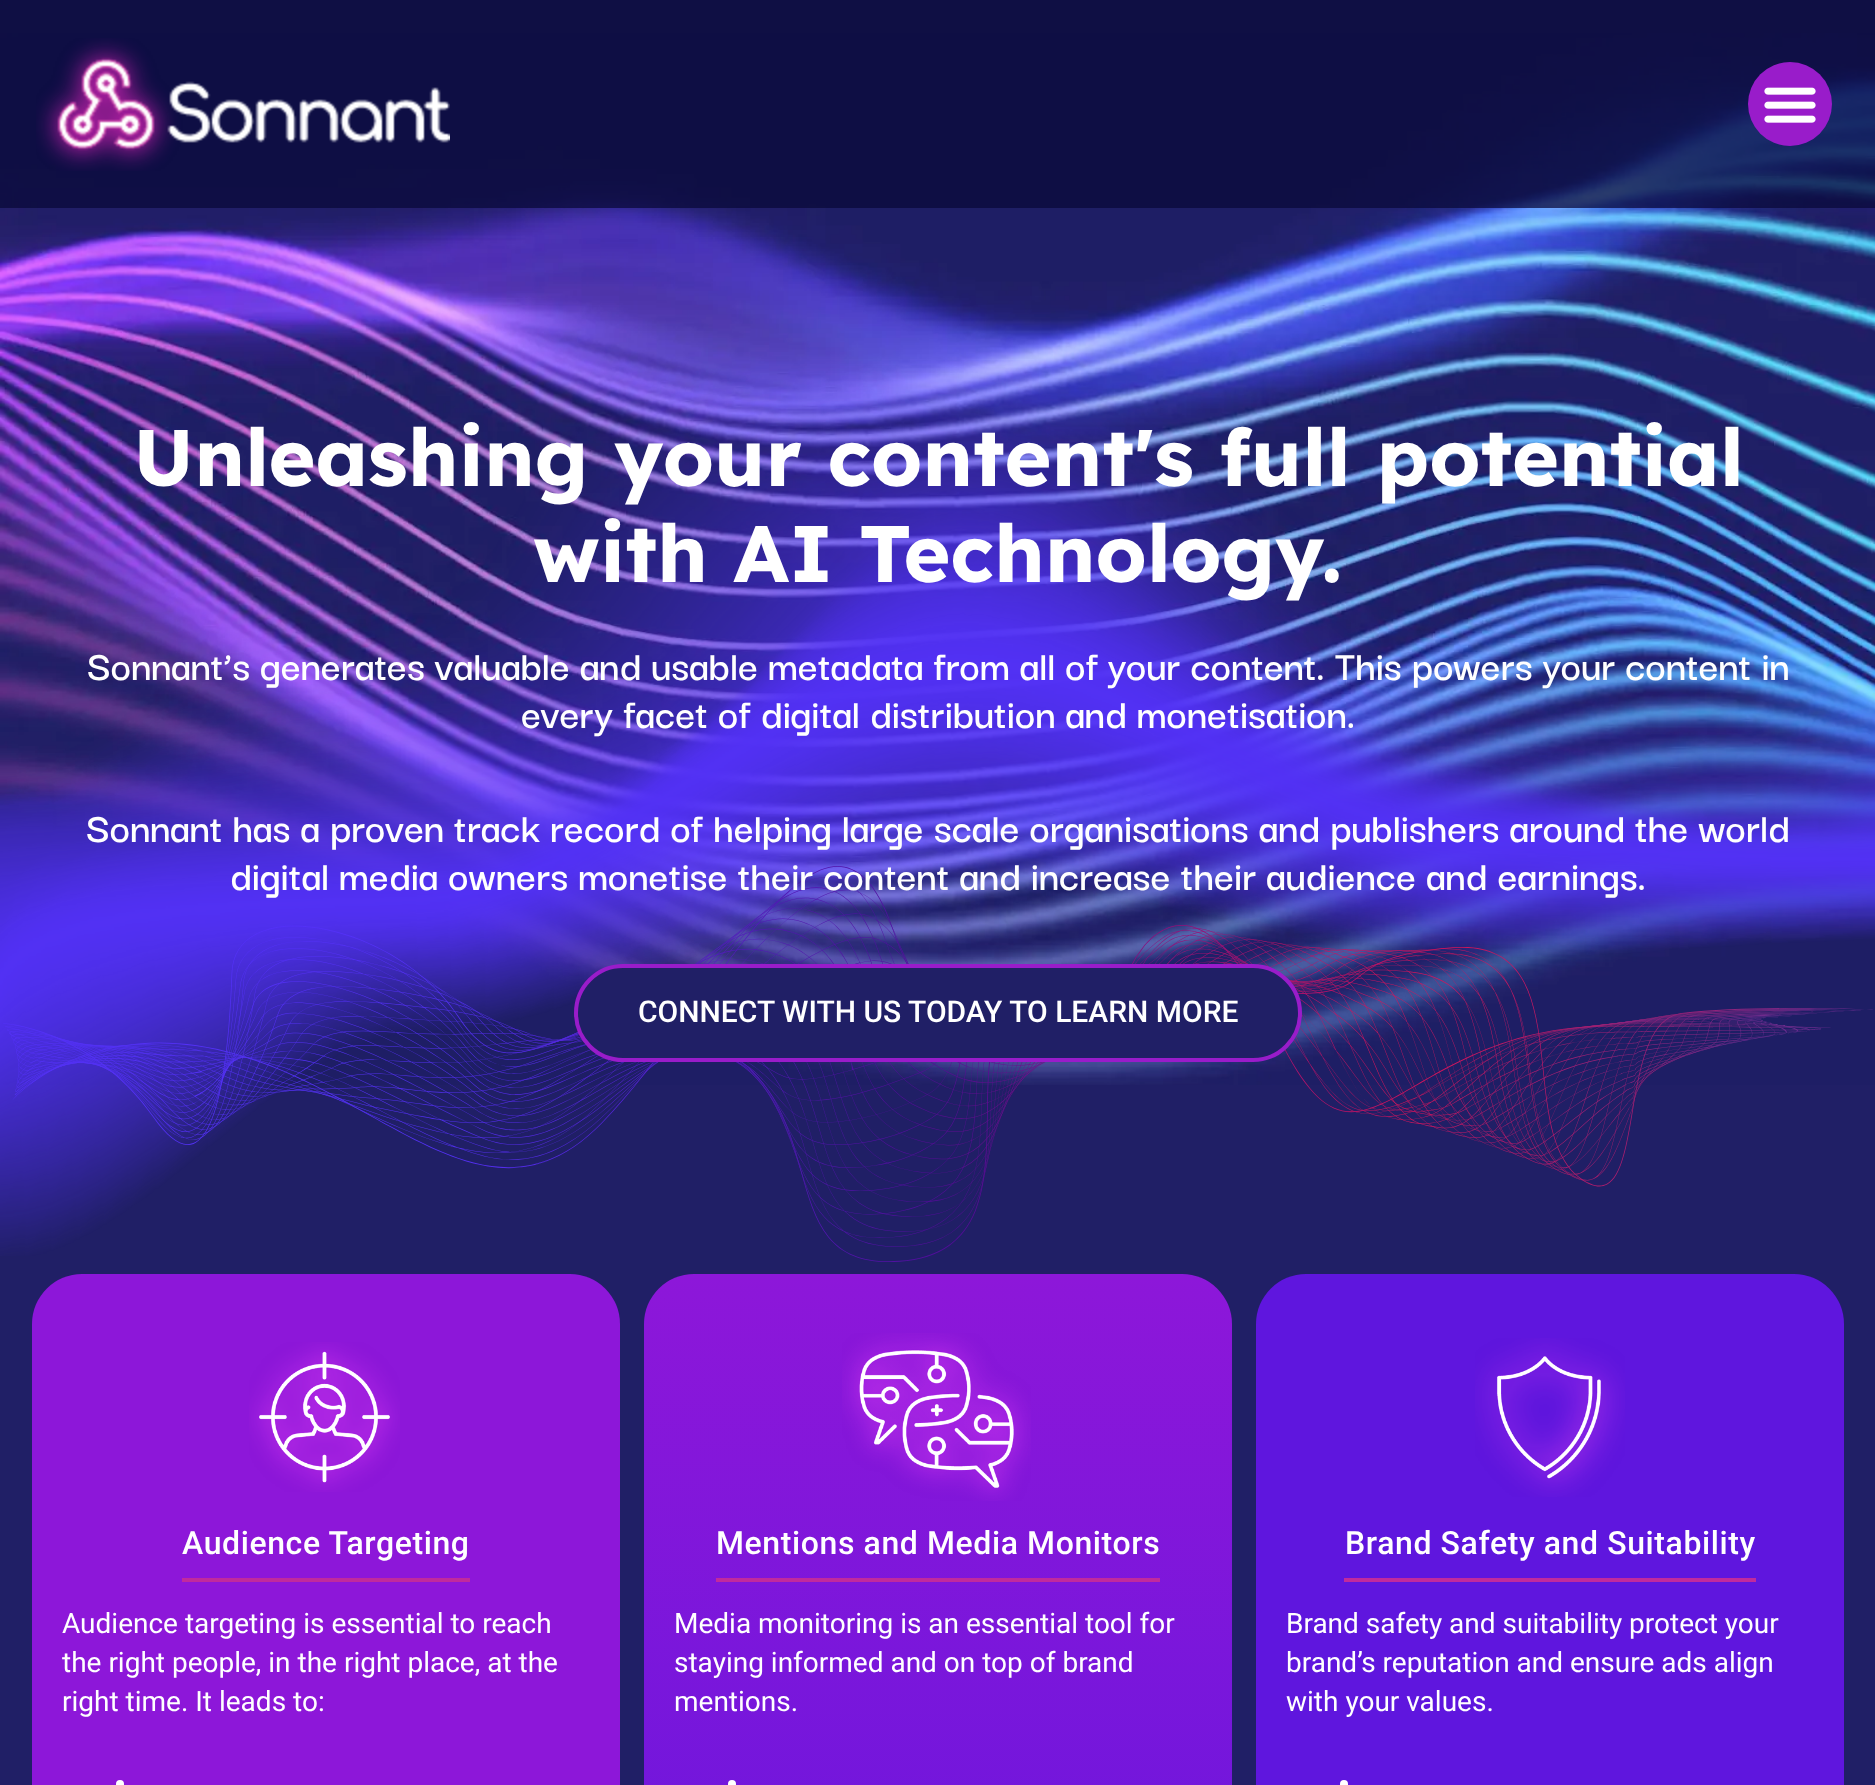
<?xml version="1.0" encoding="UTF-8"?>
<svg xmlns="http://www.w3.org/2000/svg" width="1875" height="1785">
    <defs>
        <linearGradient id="g1" gradientUnits="userSpaceOnUse" x1="938" y1="1274" x2="938" y2="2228"><stop offset="0" stop-color="#8D17D9"/><stop offset="1" stop-color="#5F16DE"/></linearGradient>
    </defs>
    <rect width="100%" height="100%" fill="#201F66"/>
    <image x="0" y="33" width="1875" height="1052" href="img_01.png"/>
    <rect x="0" y="0" width="1875" height="208" fill="#0A0A39" fill-opacity="0.74"/>
    <image x="36" y="38" width="414" height="133" href="img_02.png"/>
    <circle cx="1790" cy="104" r="42" fill="#991CCA"/>
    <image x="1764" y="87" width="52" height="36" href="img_03.png"/>
    <image x="0" y="360" width="1875" height="896" href="img_04.png"/>
    <text x="133" y="486" font-family="Lexend" font-size="80" font-weight="700" fill="#FFFFFF">Unleashing your content's full potential</text>
    <text x="533" y="582" font-family="Lexend" font-size="80" font-weight="700" fill="#FFFFFF">with AI Technology.</text>
    <text x="87" y="680" font-family="Darker Grotesque" font-size="44" font-weight="600" fill="#FFFFFF">Sonnant’s generates valuable and usable metadata from all of your content. This powers your content in</text>
    <text x="521" y="728" font-family="Darker Grotesque" font-size="44" font-weight="600" fill="#FFFFFF">every facet of digital distribution and monetisation.</text>
    <text x="86" y="842" font-family="Darker Grotesque" font-size="44" font-weight="600" fill="#FFFFFF">Sonnant has a proven track record of helping large scale organisations and publishers around the world</text>
    <image x="3" y="866" width="1870" height="396" href="img_05.png"/>
    <text x="230" y="890" font-family="Darker Grotesque" font-size="44" font-weight="600" fill="#FFFFFF">digital media owners monetise their content and increase their audience and earnings.</text>
    <rect x="576" y="966" width="724" height="94" rx="47" fill="#201F66" stroke="#991CCA" stroke-width="4"/>
    <text x="638" y="1022" font-family="Roboto" font-size="30" font-weight="500" fill="#FFFFFF">CONNECT WITH US TODAY TO LEARN MORE</text>
    <rect x="32" y="1274" width="588" height="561" rx="50" fill="#8D17D9"/>
    <image x="249" y="1342" width="151" height="150" href="img_06.png"/>
    <rect x="182" y="1578" width="288" height="4" fill="#C12A9D"/>
    <text x="182" y="1554" font-family="Roboto" font-size="32" font-weight="500" letter-spacing="0.6" fill="#FFFFFF">Audience Targeting</text>
    <text font-family="Roboto" font-size="28" fill="#FFFFFF">
        <tspan x="62" y="1633">Audience targeting is essential to reach</tspan>
        <tspan x="62" y="1672">the right people, in the right place, at the</tspan>
        <tspan x="62" y="1711">right time. It leads to:</tspan>
    </text>
    <circle cx="120" cy="1784" r="4" fill="#FFFFFF"/>
    <rect x="644" y="1274" width="588" height="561" rx="50" fill="url(#g1)"/>
    <image x="842" y="1333" width="189" height="168" href="img_07.png"/>
    <rect x="716" y="1578" width="444" height="4" fill="#C12A9D"/>
    <text x="716" y="1554" font-family="Roboto" font-size="32" font-weight="500" letter-spacing="0.6" fill="#FFFFFF">Mentions and Media Monitors</text>
    <text font-family="Roboto" font-size="28" fill="#FFFFFF">
        <tspan x="674" y="1633">Media monitoring is an essential tool for</tspan>
        <tspan x="674" y="1672">staying informed and on top of brand</tspan>
        <tspan x="674" y="1711">mentions.</tspan>
    </text>
    <circle cx="732" cy="1784" r="4" fill="#FFFFFF"/>
    <rect x="1256" y="1274" width="588" height="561" rx="50" fill="#5F16DE"/>
    <image x="1475" y="1338" width="150" height="159" href="img_08.png"/>
    <rect x="1344" y="1578" width="412" height="4" fill="#C12A9D"/>
    <text x="1345" y="1554" font-family="Roboto" font-size="32" font-weight="500" letter-spacing="0.6" fill="#FFFFFF">Brand Safety and Suitability</text>
    <text font-family="Roboto" font-size="28" fill="#FFFFFF">
        <tspan x="1286" y="1633">Brand safety and suitability protect your</tspan>
        <tspan x="1286" y="1672">brand’s reputation and ensure ads align</tspan>
        <tspan x="1286" y="1711">with your values.</tspan>
    </text>
    <circle cx="1344" cy="1784" r="4" fill="#FFFFFF"/>
</svg>
